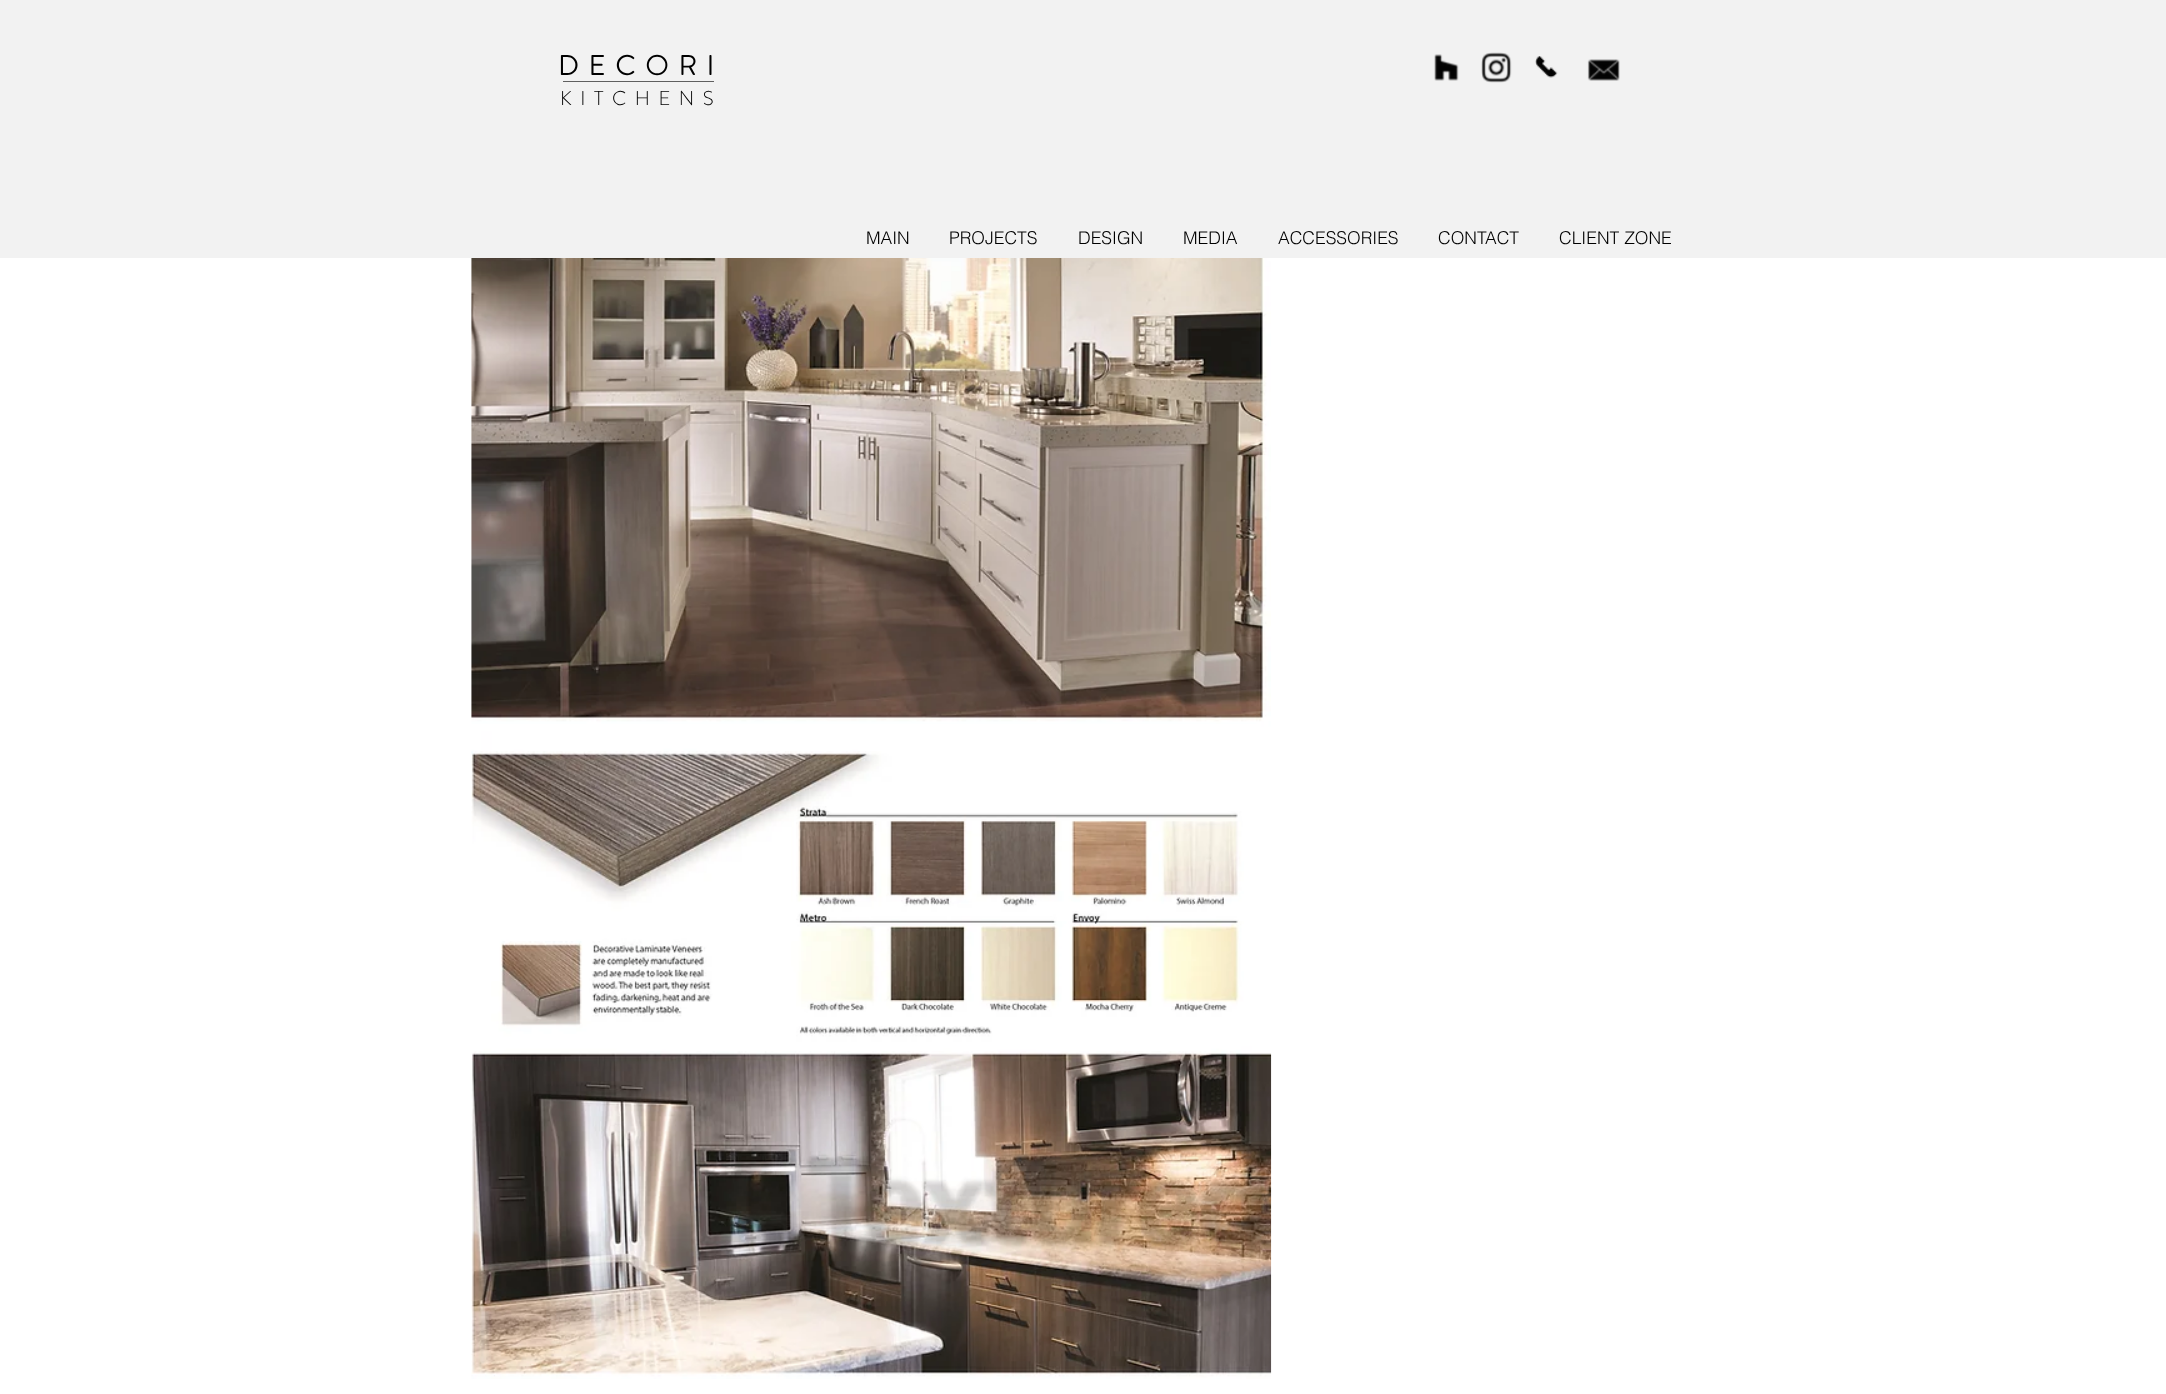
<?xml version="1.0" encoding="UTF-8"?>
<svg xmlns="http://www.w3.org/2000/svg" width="2166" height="1394">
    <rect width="100%" height="100%" fill="#FFFFFF"/>
    <rect x="0" y="0" width="2166" height="258" fill="#F2F2F2"/>
    <text x="558" y="75" font-family="'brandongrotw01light'" font-size="27.5" font-weight="700" letter-spacing="10.25" fill="#000000">DECORI</text>
    <rect x="563" y="81" width="151" height="1" fill="#606060"/>
    <text x="560" y="105" font-family="'brandongrotw01light'" font-size="20" font-weight="300" letter-spacing="8.5" fill="#000000">KITCHENS</text>
    <image x="1434" y="54" width="25" height="27" href="img_01.png"/>
    <image x="1481" y="52" width="31" height="31" href="img_02.png"/>
    <image x="1535" y="56" width="23" height="22" href="img_03.png"/>
    <image x="1587" y="59" width="33" height="22" href="img_04.png"/>
    <text x="866" y="244" font-family="helvetica" font-size="17.5" font-weight="300" fill="#000000">MAIN</text>
    <text x="949" y="244" font-family="helvetica" font-size="17.5" font-weight="300" fill="#000000">PROJECTS</text>
    <text x="1078" y="244" font-family="helvetica" font-size="17.5" font-weight="300" fill="#000000">DESIGN</text>
    <text x="1183" y="244" font-family="helvetica" font-size="17.5" font-weight="300" fill="#000000">MEDIA</text>
    <text x="1278" y="244" font-family="helvetica" font-size="17.5" font-weight="300" fill="#000000">ACCESSORIES</text>
    <text x="1438" y="244" font-family="helvetica" font-size="17.5" font-weight="300" fill="#000000">CONTACT</text>
    <text x="1559" y="244" font-family="helvetica" font-size="17.5" font-weight="300" fill="#000000">CLIENT ZONE</text>
    <image x="471" y="258" width="801" height="1121" href="img_05.png"/>
</svg>
